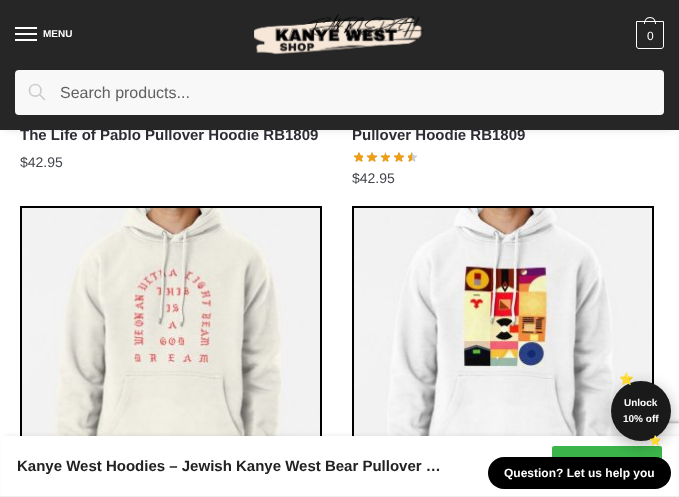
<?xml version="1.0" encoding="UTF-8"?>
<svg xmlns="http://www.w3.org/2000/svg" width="679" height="497">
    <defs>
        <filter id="blur1" x="-50%" y="-200%" width="200%" height="500%"><feGaussianBlur stdDeviation="5"/></filter>
        <clipPath id="clip1"><rect x="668" y="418" width="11" height="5"/></clipPath>
        <filter id="blur2" x="-50%" y="-200%" width="200%" height="500%"><feGaussianBlur stdDeviation="2.5"/></filter>
        <filter id="blur3" x="-50%" y="-200%" width="200%" height="500%"><feGaussianBlur stdDeviation="7.5"/></filter>
    </defs>
    <rect width="100%" height="100%" fill="#FFFFFF"/>
    <rect x="0" y="0" width="679" height="70" fill="#262626"/>
    <rect x="15" y="27" width="22" height="2" fill="#FFFFFF"/>
    <rect x="15" y="33" width="22" height="2" fill="#FFFFFF"/>
    <text x="43" y="37" font-family="Liberation Sans" font-size="10" font-weight="700" fill="#FFFFFF">MENU</text>
    <rect x="15" y="39" width="22" height="2" fill="#FFFFFF"/>
    <image x="254" y="14" width="170" height="41" href="img_01.png"/>
    <path d="M 636.5 21.5 H 663.5 V 46 C 663.5 47.5 662.5 48.5 661 48.5 H 639 C 637.5 48.5 636.5 47.5 636.5 46 Z" fill="none" stroke="#FFFFFF"/>
    <path d="M 650 17 C 654 17 656 20.5 656 24 H 644 C 644 20.5 646 17 650 17 Z M 650 18 C 653.5 18 655 21 655 24 H 645 C 645 21 646.5 18 650 18 Z" fill="#FFFFFF" fill-rule="evenodd"/>
    <text x="647" y="40" font-family="Liberation Sans" font-size="12" letter-spacing="-1" fill="#FFFFFF">0</text>
    <rect x="5" y="78" width="669" height="50" fill="#000000" fill-opacity="0.18" filter="url(#blur1)"/>
    <text x="20" y="140" font-family="Liberation Sans" font-size="15" font-weight="700" fill="#2C2D33">The Life of Pablo Pullover Hoodie RB1809</text>
    <text x="352" y="140" font-family="Liberation Sans" font-size="15" font-weight="700" fill="#2C2D33">Pullover Hoodie RB1809</text>
    <rect x="0" y="70" width="679" height="60" fill="#262626"/>
    <rect x="15" y="70" width="649" height="45" rx="4" fill="#F8F8F8"/>
    <path d="M 44.5 99.5 L 39.5 94.5 M 41 90.5 C 41 98 29.5 98 29.5 90.5 C 29.5 82.5 41 82.5 41 90.5 Z" fill="none" stroke="#CCCCCC" stroke-width="1.7" stroke-linecap="round" stroke-linejoin="round"/>
    <text x="60" y="98" font-family="Liberation Sans" font-size="16" fill="#616161">Search products...</text>
    <text x="20" y="167" font-family="Liberation Sans" font-size="14" fill="#43454B">$42.95</text>
    <image x="353" y="152" width="64" height="10" href="img_02.png"/>
    <image x="353" y="152" width="59" height="10" href="img_03.png"/>
    <text x="352" y="183" font-family="Liberation Sans" font-size="14" fill="#43454B">$42.95</text>
    <rect x="21" y="207" width="300" height="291" fill="none" stroke="#000000" stroke-width="2"/>
    <image x="22" y="208" width="298" height="228" href="img_04.png"/>
    <g clip-path="url(#clip1)">
        <rect x="609" y="423" width="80" height="60" rx="2" fill="#808080" filter="url(#blur2)"/>
    </g>
    <rect x="609.5" y="423.5" width="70" height="59" fill="none" stroke="#EEEEEE"/>
    <rect x="353" y="207" width="300" height="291" fill="none" stroke="#000000" stroke-width="2"/>
    <image x="354" y="208" width="298" height="228" href="img_05.png"/>
    <rect x="5" y="436" width="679" height="61" fill="#1B1F23" fill-opacity="0.1" filter="url(#blur2)"/>
    <rect x="2" y="436" width="677" height="60" fill="#FFFFFF"/>
    <rect x="0" y="496" width="679" height="1" fill="#EEEEEE"/>
    <text x="17" y="471" font-family="Liberation Sans" font-size="15" font-weight="700" fill="#222222">Kanye West Hoodies – Jewish Kanye West Bear Pullover …</text>
    <rect x="552" y="446" width="110" height="40" rx="2" fill="#3BB54A"/>
    <rect x="488" y="457" width="183" height="32" rx="16" fill="#000000"/>
    <rect x="611" y="385" width="60" height="60" rx="30" fill="#000000" fill-opacity="0.3" filter="url(#blur3)"/>
    <circle cx="641" cy="411" r="30" fill="#1A1A1A"/>
    <text x="619" y="383" font-family="Noto Color Emoji" font-size="12" font-weight="700" fill="#FFD700">⭐</text>
    <text x="624" y="406" font-family="Liberation Sans" font-size="10" font-weight="700" fill="#FFFFFF">Unlock</text>
    <text x="623" y="422" font-family="Liberation Sans" font-size="10" font-weight="700" fill="#FFFFFF">10% off</text>
    <text x="649" y="444" font-family="Noto Color Emoji" font-size="10" font-weight="700" fill="#FFD700">⭐</text>
    <text x="504" y="477" font-family="Liberation Sans" font-size="12" font-weight="700" fill="#FFFFFF">Question? Let us help you</text>
</svg>
